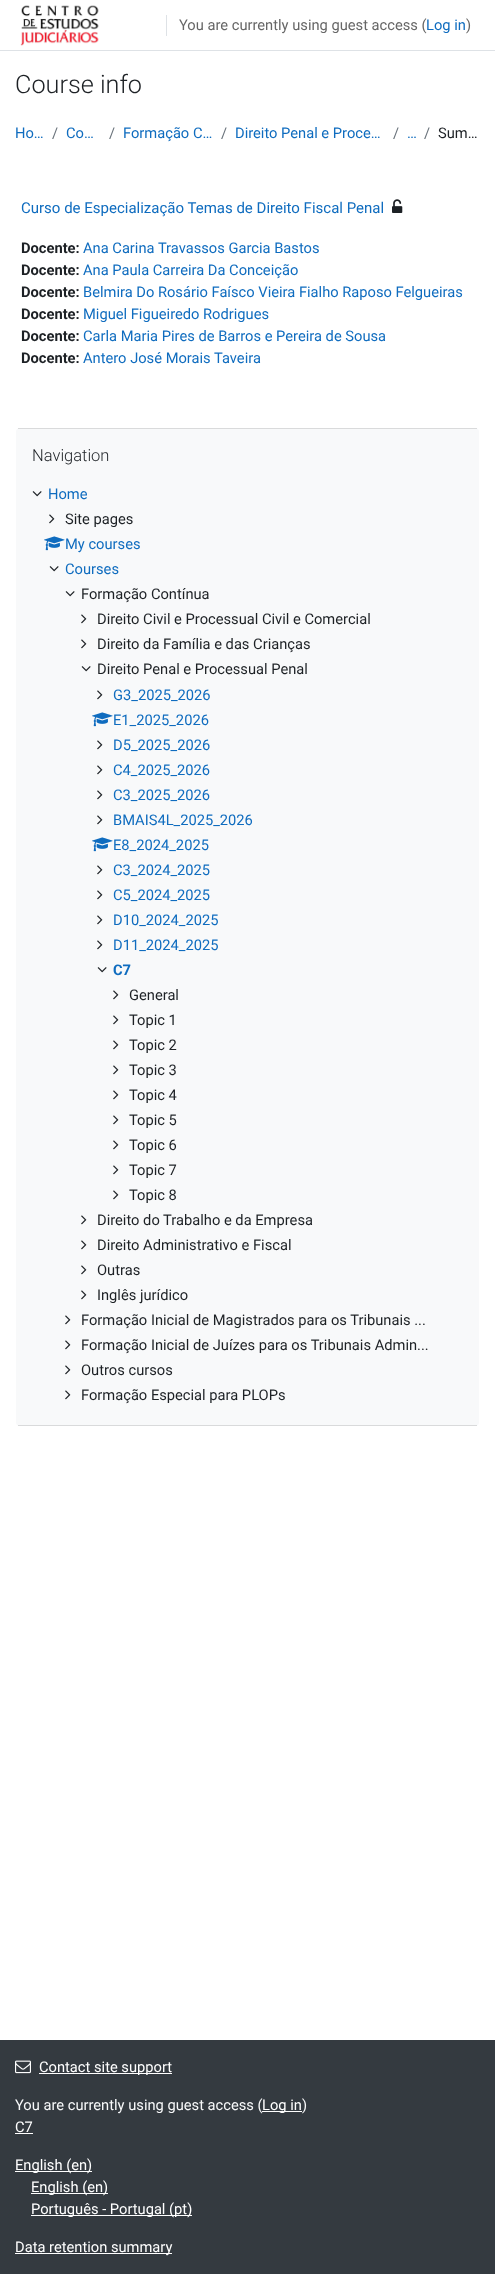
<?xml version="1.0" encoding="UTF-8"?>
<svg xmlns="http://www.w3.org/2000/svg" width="495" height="2274">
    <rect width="100%" height="100%" fill="#FFFFFF"/>
    <rect x="0" y="50" width="495" height="1" fill="#DEE2E6"/>
    <image x="20" y="5" width="79" height="41" href="img_01.png"/>
    <rect x="166" y="15" width="1" height="21" fill="#DEE2E6"/>
    <text x="179" y="30" font-family="Roboto" font-size="14.7" fill="#666666">You are currently using guest access (</text>
    <text x="426" y="30" font-family="Roboto" font-size="14.7" fill="#0F6CBF">Log in</text>
    <text x="466" y="30" font-family="Roboto" font-size="14.7" fill="#666666">)</text>
    <text x="15" y="93" font-family="Roboto" font-size="25.25" font-weight="300" fill="#1D2125">Course info</text>
    <text x="15" y="138" font-family="Roboto" font-size="14.7" fill="#0F6CBF">Ho…</text>
    <text x="52" y="138" font-family="Roboto" font-size="14.7" fill="#6A737B">/</text>
    <text x="66" y="138" font-family="Roboto" font-size="14.7" fill="#0F6CBF">Co…</text>
    <text x="109" y="138" font-family="Roboto" font-size="14.7" fill="#6A737B">/</text>
    <text x="123" y="138" font-family="Roboto" font-size="14.7" fill="#0F6CBF">Formação C…</text>
    <text x="221" y="138" font-family="Roboto" font-size="14.7" fill="#6A737B">/</text>
    <text x="235" y="138" font-family="Roboto" font-size="14.7" fill="#0F6CBF">Direito Penal e Proce…</text>
    <text x="393" y="138" font-family="Roboto" font-size="14.7" fill="#6A737B">/</text>
    <text x="407" y="138" font-family="Roboto" font-size="14.7" fill="#0F6CBF">…</text>
    <text x="424" y="138" font-family="Roboto" font-size="14.7" fill="#6A737B">/</text>
    <text x="438" y="138" font-family="Roboto" font-size="14.7" fill="#1D2125">Sum…</text>
    <text x="21" y="213" font-family="Roboto" font-size="15" fill="#0F6CBF">Curso de Especialização Temas de Direito Fiscal Penal</text>
    <image x="392" y="199" width="11" height="14" href="img_02.png"/>
    <text x="21" y="253" font-family="Roboto" font-size="14.7" font-weight="700" fill="#1D2125">Docente:</text>
    <text x="83" y="253" font-family="Roboto" font-size="14.7" fill="#0F6CBF">Ana Carina Travassos Garcia Bastos</text>
    <text x="21" y="275" font-family="Roboto" font-size="14.7" font-weight="700" fill="#1D2125">Docente:</text>
    <text x="83" y="275" font-family="Roboto" font-size="14.7" fill="#0F6CBF">Ana Paula Carreira Da Conceição</text>
    <text x="21" y="297" font-family="Roboto" font-size="14.7" font-weight="700" fill="#1D2125">Docente:</text>
    <text x="83" y="297" font-family="Roboto" font-size="14.7" fill="#0F6CBF">Belmira Do Rosário Faísco Vieira Fialho Raposo Felgueiras</text>
    <text x="21" y="319" font-family="Roboto" font-size="14.7" font-weight="700" fill="#1D2125">Docente:</text>
    <text x="83" y="319" font-family="Roboto" font-size="14.7" fill="#0F6CBF">Miguel Figueiredo Rodrigues</text>
    <text x="21" y="341" font-family="Roboto" font-size="14.7" font-weight="700" fill="#1D2125">Docente:</text>
    <text x="83" y="341" font-family="Roboto" font-size="14.7" fill="#0F6CBF">Carla Maria Pires de Barros e Pereira de Sousa</text>
    <text x="21" y="363" font-family="Roboto" font-size="14.7" font-weight="700" fill="#1D2125">Docente:</text>
    <text x="83" y="363" font-family="Roboto" font-size="14.7" fill="#0F6CBF">Antero José Morais Taveira</text>
    <rect x="16" y="428" width="463" height="998" rx="4" fill="#F8F9FA"/>
    <rect x="18" y="428" width="459" height="1" fill="#D9DADB"/>
    <rect x="18" y="1425" width="459" height="1" fill="#D9DADB"/>
    <text x="32" y="461" font-family="Roboto" font-size="16.5" font-weight="300" fill="#1D2125">Navigation</text>
    <image x="32" y="491" width="10" height="6" href="img_03.png"/>
    <text x="48" y="499" font-family="Roboto" font-size="14.7" fill="#0F6CBF">Home</text>
    <image x="49" y="514" width="6" height="10" href="img_04.png"/>
    <text x="65" y="524" font-family="Roboto" font-size="14.7" fill="#1D2125">Site pages</text>
    <image x="44" y="536" width="21" height="15" href="img_05.png"/>
    <text x="65" y="549" font-family="Roboto" font-size="14.7" fill="#0F6CBF">My courses</text>
    <image x="49" y="566" width="10" height="6" href="img_03.png"/>
    <text x="65" y="574" font-family="Roboto" font-size="14.7" fill="#0F6CBF">Courses</text>
    <image x="65" y="591" width="10" height="6" href="img_03.png"/>
    <text x="81" y="599" font-family="Roboto" font-size="14.7" fill="#1D2125">Formação Contínua</text>
    <image x="81" y="614" width="6" height="10" href="img_04.png"/>
    <text x="97" y="624" font-family="Roboto" font-size="14.7" fill="#1D2125">Direito Civil e Processual Civil e Comercial</text>
    <image x="81" y="639" width="6" height="10" href="img_04.png"/>
    <text x="97" y="649" font-family="Roboto" font-size="14.7" fill="#1D2125">Direito da Família e das Crianças</text>
    <image x="81" y="666" width="10" height="6" href="img_03.png"/>
    <text x="97" y="674" font-family="Roboto" font-size="14.7" fill="#1D2125">Direito Penal e Processual Penal</text>
    <image x="97" y="690" width="6" height="10" href="img_04.png"/>
    <text x="113" y="700" font-family="Roboto" font-size="14.7" fill="#0F6CBF">G3_2025_2026</text>
    <image x="92" y="712" width="21" height="15" href="img_05.png"/>
    <text x="113" y="725" font-family="Roboto" font-size="14.7" fill="#0F6CBF">E1_2025_2026</text>
    <image x="97" y="740" width="6" height="10" href="img_04.png"/>
    <text x="113" y="750" font-family="Roboto" font-size="14.7" fill="#0F6CBF">D5_2025_2026</text>
    <image x="97" y="765" width="6" height="10" href="img_04.png"/>
    <text x="113" y="775" font-family="Roboto" font-size="14.7" fill="#0F6CBF">C4_2025_2026</text>
    <image x="97" y="790" width="6" height="10" href="img_04.png"/>
    <text x="113" y="800" font-family="Roboto" font-size="14.7" fill="#0F6CBF">C3_2025_2026</text>
    <image x="97" y="815" width="6" height="10" href="img_04.png"/>
    <text x="113" y="825" font-family="Roboto" font-size="14.7" fill="#0F6CBF">BMAIS4L_2025_2026</text>
    <image x="92" y="837" width="21" height="15" href="img_05.png"/>
    <text x="113" y="850" font-family="Roboto" font-size="14.7" fill="#0F6CBF">E8_2024_2025</text>
    <image x="97" y="865" width="6" height="10" href="img_04.png"/>
    <text x="113" y="875" font-family="Roboto" font-size="14.7" fill="#0F6CBF">C3_2024_2025</text>
    <image x="97" y="890" width="6" height="10" href="img_04.png"/>
    <text x="113" y="900" font-family="Roboto" font-size="14.7" fill="#0F6CBF">C5_2024_2025</text>
    <image x="97" y="915" width="6" height="10" href="img_04.png"/>
    <text x="113" y="925" font-family="Roboto" font-size="14.7" fill="#0F6CBF">D10_2024_2025</text>
    <image x="97" y="940" width="6" height="10" href="img_04.png"/>
    <text x="113" y="950" font-family="Roboto" font-size="14.7" fill="#0F6CBF">D11_2024_2025</text>
    <image x="97" y="967" width="10" height="6" href="img_03.png"/>
    <text x="113" y="975" font-family="Roboto" font-size="14.7" font-weight="700" fill="#0F6CBF">C7</text>
    <image x="113" y="990" width="6" height="10" href="img_04.png"/>
    <text x="129" y="1000" font-family="Roboto" font-size="14.7" fill="#1D2125">General</text>
    <image x="113" y="1015" width="6" height="10" href="img_04.png"/>
    <text x="129" y="1025" font-family="Roboto" font-size="14.7" fill="#1D2125">Topic 1</text>
    <image x="113" y="1040" width="6" height="10" href="img_04.png"/>
    <text x="129" y="1050" font-family="Roboto" font-size="14.7" fill="#1D2125">Topic 2</text>
    <image x="113" y="1065" width="6" height="10" href="img_04.png"/>
    <text x="129" y="1075" font-family="Roboto" font-size="14.7" fill="#1D2125">Topic 3</text>
    <image x="113" y="1090" width="6" height="10" href="img_04.png"/>
    <text x="129" y="1100" font-family="Roboto" font-size="14.7" fill="#1D2125">Topic 4</text>
    <image x="113" y="1115" width="6" height="10" href="img_04.png"/>
    <text x="129" y="1125" font-family="Roboto" font-size="14.7" fill="#1D2125">Topic 5</text>
    <image x="113" y="1140" width="6" height="10" href="img_04.png"/>
    <text x="129" y="1150" font-family="Roboto" font-size="14.7" fill="#1D2125">Topic 6</text>
    <image x="113" y="1165" width="6" height="10" href="img_04.png"/>
    <text x="129" y="1175" font-family="Roboto" font-size="14.7" fill="#1D2125">Topic 7</text>
    <image x="113" y="1190" width="6" height="10" href="img_04.png"/>
    <text x="129" y="1200" font-family="Roboto" font-size="14.7" fill="#1D2125">Topic 8</text>
    <image x="81" y="1215" width="6" height="10" href="img_04.png"/>
    <text x="97" y="1225" font-family="Roboto" font-size="14.7" fill="#1D2125">Direito do Trabalho e da Empresa</text>
    <image x="81" y="1240" width="6" height="10" href="img_04.png"/>
    <text x="97" y="1250" font-family="Roboto" font-size="14.7" fill="#1D2125">Direito Administrativo e Fiscal</text>
    <image x="81" y="1265" width="6" height="10" href="img_04.png"/>
    <text x="97" y="1275" font-family="Roboto" font-size="14.7" fill="#1D2125">Outras</text>
    <image x="81" y="1290" width="6" height="10" href="img_04.png"/>
    <text x="97" y="1300" font-family="Roboto" font-size="14.7" fill="#1D2125">Inglês jurídico</text>
    <image x="65" y="1315" width="6" height="10" href="img_04.png"/>
    <text x="81" y="1325" font-family="Roboto" font-size="14.7" fill="#1D2125">Formação Inicial de Magistrados para os Tribunais ...</text>
    <image x="65" y="1340" width="6" height="10" href="img_04.png"/>
    <text x="81" y="1350" font-family="Roboto" font-size="14.7" fill="#1D2125">Formação Inicial de Juízes para os Tribunais Admin...</text>
    <image x="65" y="1365" width="6" height="10" href="img_04.png"/>
    <text x="81" y="1375" font-family="Roboto" font-size="14.7" fill="#1D2125">Outros cursos</text>
    <image x="65" y="1390" width="6" height="10" href="img_04.png"/>
    <text x="81" y="1400" font-family="Roboto" font-size="14.7" fill="#1D2125">Formação Especial para PLOPs</text>
    <rect x="0" y="2040" width="495" height="234" fill="#343A40"/>
    <image x="15" y="2060" width="16" height="14" href="img_06.png"/>
    <rect x="39" y="2073" width="133" height="1" fill="#FFFFFF"/>
    <text x="39" y="2072" font-family="Roboto" font-size="14.7" fill="#FFFFFF">Contact site support</text>
    <text x="15" y="2110" font-family="Roboto" font-size="14.7" fill="#F8F9FA">You are currently using guest access (</text>
    <rect x="262" y="2111" width="40" height="1" fill="#FFFFFF"/>
    <text x="262" y="2110" font-family="Roboto" font-size="14.7" fill="#FFFFFF">Log in</text>
    <text x="302" y="2110" font-family="Roboto" font-size="14.7" fill="#F8F9FA">)</text>
    <text x="15" y="2132" font-family="Roboto" font-size="14.7" fill="#FFFFFF">C7</text>
    <rect x="15" y="2133" width="18" height="1" fill="#FFFFFF"/>
    <rect x="15" y="2171" width="77" height="1" fill="#FFFFFF"/>
    <text x="15" y="2170" font-family="Roboto" font-size="14.7" fill="#FFFFFF">English (en)</text>
    <rect x="31" y="2193" width="77" height="1" fill="#FFFFFF"/>
    <text x="31" y="2192" font-family="Roboto" font-size="14.7" fill="#FFFFFF">English (en)</text>
    <rect x="31" y="2215" width="161" height="1" fill="#FFFFFF"/>
    <text x="31" y="2214" font-family="Roboto" font-size="14.7" fill="#FFFFFF">Português - Portugal (pt)</text>
    <rect x="15" y="2253" width="157" height="1" fill="#FFFFFF"/>
    <text x="15" y="2252" font-family="Roboto" font-size="14.7" fill="#FFFFFF">Data retention summary</text>
</svg>
